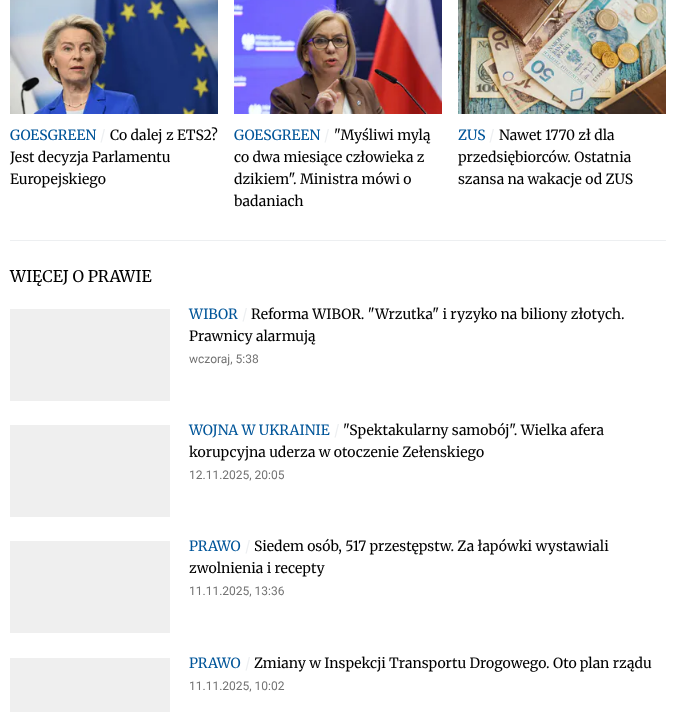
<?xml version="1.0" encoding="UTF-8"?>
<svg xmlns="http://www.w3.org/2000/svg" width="683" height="712">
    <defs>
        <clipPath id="clip1"><rect x="458" y="0" width="208" height="232"/></clipPath>
    </defs>
    <rect width="100%" height="100%" fill="#FFFFFF"/>
    <image x="10" y="0" width="208" height="114" href="img_01.png"/>
    <text x="100" y="140" font-family="Merriweather" font-size="14" fill="#EDEFF1">/</text>
    <text x="110" y="140" font-family="Merriweather" font-size="14" fill="#000000">Co dalej z ETS2?</text>
    <text font-family="Merriweather" font-size="14" fill="#000000">
        <tspan x="10" y="162">Jest decyzja Parlamentu</tspan>
        <tspan x="10" y="184">Europejskiego</tspan>
    </text>
    <text x="10" y="140" font-family="Merriweather" font-size="14" fill="#005599">GOESGREEN</text>
    <image x="234" y="0" width="208" height="114" href="img_02.png"/>
    <text x="324" y="140" font-family="Merriweather" font-size="14" fill="#EDEFF1">/</text>
    <text x="334" y="140" font-family="Merriweather" font-size="14" fill="#000000">"Myśliwi mylą</text>
    <text font-family="Merriweather" font-size="14" fill="#000000">
        <tspan x="234" y="162">co dwa miesiące człowieka z</tspan>
        <tspan x="234" y="184">dzikiem". Ministra mówi o</tspan>
        <tspan x="234" y="206">badaniach</tspan>
    </text>
    <text x="234" y="140" font-family="Merriweather" font-size="14" fill="#005599">GOESGREEN</text>
    <image x="458" y="0" width="208" height="114" href="img_03.png"/>
    <text x="489" y="140" font-family="Merriweather" font-size="14" fill="#EDEFF1">/</text>
    <text x="499" y="140" font-family="Merriweather" font-size="14" fill="#000000">Nawet 1770 zł dla</text>
    <g clip-path="url(#clip1)">
        <text x="458" y="162" font-family="Merriweather" font-size="14" fill="#000000">przedsiębiorców. Ostatnia</text>
    </g>
    <text x="458" y="184" font-family="Merriweather" font-size="14" fill="#000000">szansa na wakacje od ZUS</text>
    <text x="458" y="140" font-family="Merriweather" font-size="14" fill="#005599">ZUS</text>
    <rect x="10" y="240" width="656" height="1" fill="#EDEFF1"/>
    <text x="10" y="282" font-family="Merriweather" font-size="16" fill="#000000">WIĘCEJ O PRAWIE</text>
    <rect x="10" y="309" width="160" height="92" fill="#EFEFEF"/>
    <text x="242" y="319" font-family="Merriweather" font-size="14" fill="#EDEFF1">/</text>
    <text x="251" y="319" font-family="Merriweather" font-size="14" fill="#000000">Reforma WIBOR. "Wrzutka" i ryzyko na biliony złotych.</text>
    <text x="189" y="341" font-family="Merriweather" font-size="14" fill="#000000">Prawnicy alarmują</text>
    <text x="189" y="319" font-family="Merriweather" font-size="14" fill="#005599">WIBOR</text>
    <text x="189" y="363" font-family="Roboto" font-size="12" fill="#737373">wczoraj, 5:38</text>
    <rect x="10" y="425" width="160" height="92" fill="#EFEFEF"/>
    <text x="334" y="435" font-family="Merriweather" font-size="14" fill="#EDEFF1">/</text>
    <text x="343" y="435" font-family="Merriweather" font-size="14" fill="#000000">"Spektakularny samobój". Wielka afera</text>
    <text x="189" y="457" font-family="Merriweather" font-size="14" fill="#000000">korupcyjna uderza w otoczenie Zełenskiego</text>
    <text x="189" y="435" font-family="Merriweather" font-size="14" fill="#005599">WOJNA W UKRAINIE</text>
    <text x="189" y="479" font-family="Roboto" font-size="12" fill="#737373">12.11.2025, 20:05</text>
    <rect x="10" y="541" width="160" height="92" fill="#EFEFEF"/>
    <text x="245" y="551" font-family="Merriweather" font-size="14" fill="#EDEFF1">/</text>
    <text x="254" y="551" font-family="Merriweather" font-size="14" fill="#000000">Siedem osób, 517 przestępstw. Za łapówki wystawiali</text>
    <text x="189" y="573" font-family="Merriweather" font-size="14" fill="#000000">zwolnienia i recepty</text>
    <text x="189" y="551" font-family="Merriweather" font-size="14" fill="#005599">PRAWO</text>
    <text x="189" y="595" font-family="Roboto" font-size="12" fill="#737373">11.11.2025, 13:36</text>
    <rect x="10" y="658" width="160" height="54" fill="#EFEFEF"/>
    <text x="189" y="668" font-family="Merriweather" font-size="14" fill="#005599">PRAWO</text>
    <text x="245" y="668" font-family="Merriweather" font-size="14" fill="#EDEFF1">/</text>
    <text x="254" y="668" font-family="Merriweather" font-size="14" fill="#000000">Zmiany w Inspekcji Transportu Drogowego. Oto plan rządu</text>
    <text x="189" y="690" font-family="Roboto" font-size="12" fill="#737373">11.11.2025, 10:02</text>
</svg>
